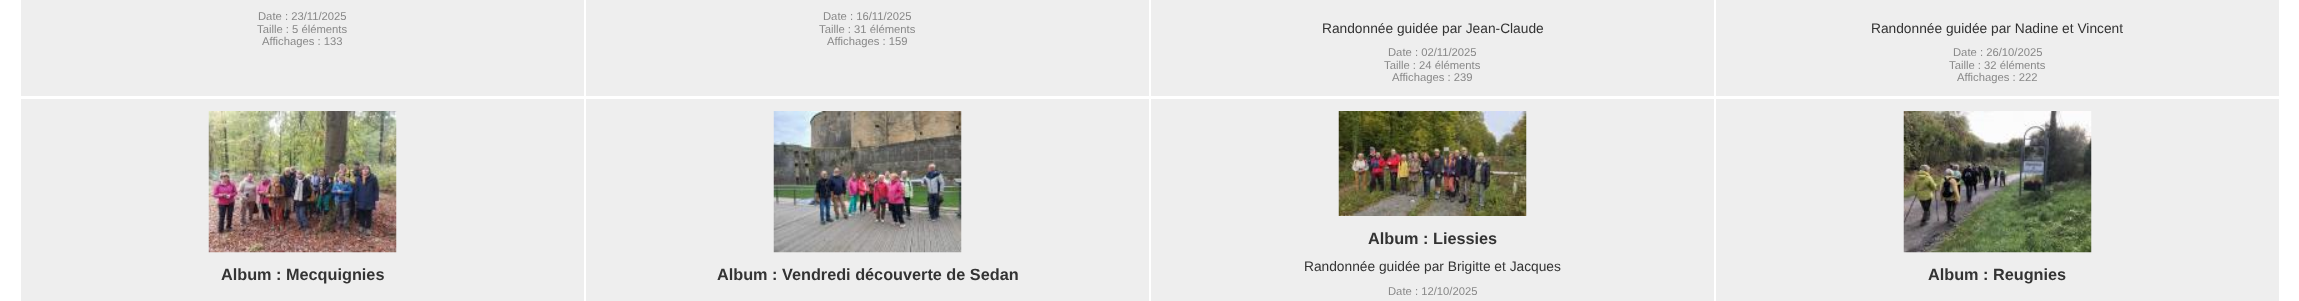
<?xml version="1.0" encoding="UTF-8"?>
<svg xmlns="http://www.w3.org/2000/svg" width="2299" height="301">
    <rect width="100%" height="100%" fill="#FFFFFF"/>
    <rect x="21" y="0" width="563" height="96" fill="#EEEEEE"/>
    <text x="258" y="20" font-family="Liberation Sans" font-size="11.25" fill="#888888">Date : 23/11/2025</text>
    <text x="257" y="33" font-family="Liberation Sans" font-size="11.25" fill="#888888">Taille : 5 éléments</text>
    <text x="262" y="45" font-family="Liberation Sans" font-size="11.25" fill="#888888">Affichages : 133</text>
    <rect x="586" y="0" width="563" height="96" fill="#EEEEEE"/>
    <text x="823" y="20" font-family="Liberation Sans" font-size="11.25" fill="#888888">Date : 16/11/2025</text>
    <text x="819" y="33" font-family="Liberation Sans" font-size="11.25" fill="#888888">Taille : 31 éléments</text>
    <text x="827" y="45" font-family="Liberation Sans" font-size="11.25" fill="#888888">Affichages : 159</text>
    <rect x="1151" y="0" width="563" height="96" fill="#EEEEEE"/>
    <text x="1322" y="33" font-family="Liberation Sans" font-size="13.75" fill="#333333">Randonnée guidée par Jean-Claude</text>
    <text x="1388" y="56" font-family="Liberation Sans" font-size="11.25" fill="#888888">Date : 02/11/2025</text>
    <text x="1384" y="69" font-family="Liberation Sans" font-size="11.25" fill="#888888">Taille : 24 éléments</text>
    <text x="1392" y="81" font-family="Liberation Sans" font-size="11.25" fill="#888888">Affichages : 239</text>
    <rect x="1716" y="0" width="563" height="96" fill="#EEEEEE"/>
    <text x="1871" y="33" font-family="Liberation Sans" font-size="13.75" fill="#333333">Randonnée guidée par Nadine et Vincent</text>
    <text x="1953" y="56" font-family="Liberation Sans" font-size="11.25" fill="#888888">Date : 26/10/2025</text>
    <text x="1949" y="69" font-family="Liberation Sans" font-size="11.25" fill="#888888">Taille : 32 éléments</text>
    <text x="1957" y="81" font-family="Liberation Sans" font-size="11.25" fill="#888888">Affichages : 222</text>
    <rect x="21" y="99" width="563" height="202" fill="#EEEEEE"/>
    <image x="208" y="111" width="189" height="142" href="img_01.png"/>
    <text x="221" y="280" font-family="Liberation Sans" font-size="16.25" font-weight="700" fill="#333333">Album : Mecquignies</text>
    <rect x="586" y="99" width="563" height="202" fill="#EEEEEE"/>
    <image x="773" y="111" width="189" height="142" href="img_02.png"/>
    <text x="717" y="280" font-family="Liberation Sans" font-size="16.25" font-weight="700" fill="#333333">Album : Vendredi découverte de Sedan</text>
    <rect x="1151" y="99" width="563" height="202" fill="#EEEEEE"/>
    <image x="1338" y="111" width="189" height="105" href="img_03.png"/>
    <text x="1368" y="244" font-family="Liberation Sans" font-size="16.25" font-weight="700" fill="#333333">Album : Liessies</text>
    <text x="1304" y="271" font-family="Liberation Sans" font-size="13.75" fill="#333333">Randonnée guidée par Brigitte et Jacques</text>
    <text x="1388" y="295" font-family="Liberation Sans" font-size="11.25" fill="#888888">Date : 12/10/2025</text>
    <rect x="1716" y="99" width="563" height="202" fill="#EEEEEE"/>
    <image x="1903" y="111" width="189" height="142" href="img_04.png"/>
    <text x="1928" y="280" font-family="Liberation Sans" font-size="16.25" font-weight="700" fill="#333333">Album : Reugnies</text>
</svg>
